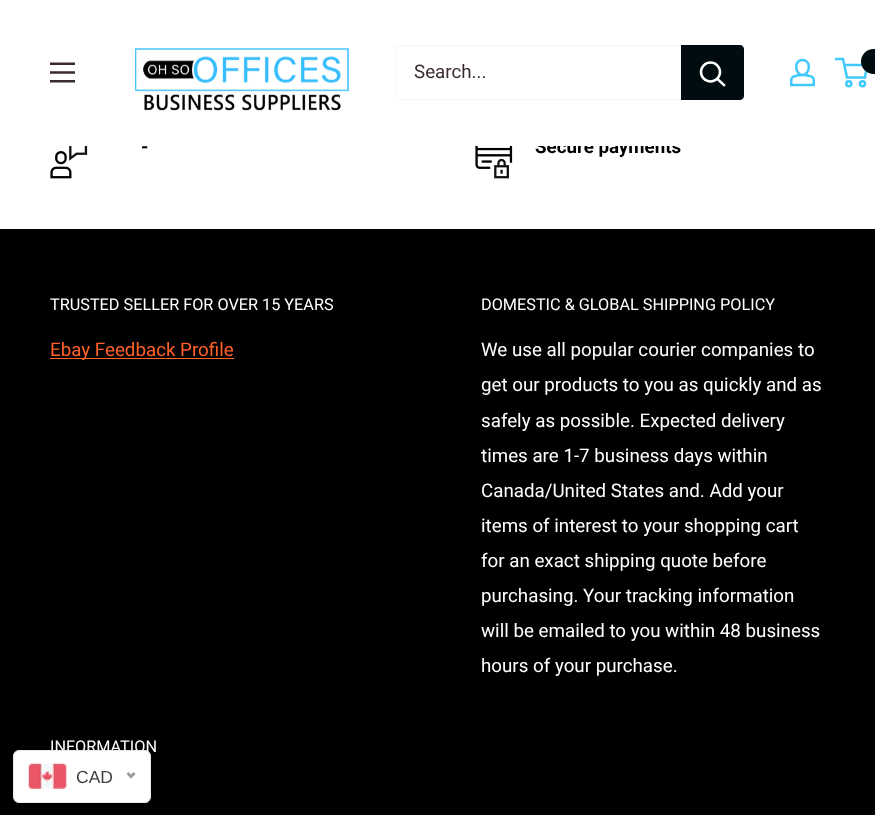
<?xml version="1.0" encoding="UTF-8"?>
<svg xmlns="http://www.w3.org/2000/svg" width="875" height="815">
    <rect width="100%" height="100%" fill="#FFFFFF"/>
    <text x="535" y="153" font-family="Roboto" font-size="18.75" font-weight="700" fill="#000000">Secure payments</text>
    <rect x="536" y="139" width="145" height="7" fill="#FFFFFF"/>
    <image x="50" y="62" width="25" height="21" href="img_01.png"/>
    <image x="135" y="48" width="214" height="63" href="img_02.png"/>
    <path d="M 396 99 C 397 99 398 100 399 100 H 740 C 742 100 744 98 744 96 V 49 C 744 47 743 46 742 45 V 48 V 95 C 742 97 741 99 739 99 H 398 Z" fill="#F8F6F5"/>
    <path d="M 400 46 H 741 L 743 47 C 743 46 741 45 740 45 H 399 C 397 45 395 47 395 49 V 96 C 395 97 395 98 396 99 V 58 C 396 56 394 46 400 46 Z" fill="#E9E2DD" fill-opacity="0.3"/>
    <text x="414" y="78" font-family="Roboto" font-size="18.75" fill="#3A2A2F">Search...</text>
    <path d="M 681 45 H 740 C 742 45 744 47 744 49 V 96 C 744 98 742 100 740 100 H 681 Z" fill="#010C11"/>
    <path d="M 724 85 L 717.5 79" fill="none" stroke="#FFFFFF" stroke-width="2.5" stroke-linecap="square"/>
    <circle cx="710.5" cy="72" r="9.5" fill="none" stroke="#FFFFFF" stroke-width="2.5"/>
    <image x="790" y="58" width="25" height="29" href="img_03.png"/>
    <circle cx="848.8" cy="83.8" r="2.5" fill="none" stroke="#40C9FF" stroke-width="2.5"/>
    <circle cx="862.5" cy="83.8" r="2.5" fill="none" stroke="#40C9FF" stroke-width="2.5"/>
    <path d="M 844 65 H 867 L 865 77.5 H 847 L 843 59 H 835" fill="none" stroke="#40C9FF" stroke-width="2.5"/>
    <circle cx="873.5" cy="61.5" r="12.5" fill="#010C11"/>
    <image x="50" y="146" width="38" height="33" href="img_04.png"/>
    <text x="141" y="153" font-family="Roboto" font-size="18.75" font-weight="700" fill="#000000">-</text>
    <image x="475" y="146" width="38" height="33" href="img_05.png"/>
    <rect x="0" y="229" width="875" height="586" fill="#000000"/>
    <text x="50" y="310" font-family="Roboto" font-size="16.25" fill="#FFFFFF">TRUSTED SELLER FOR OVER 15 YEARS</text>
    <rect x="50" y="358" width="184" height="1" fill="#FF6128"/>
    <text x="50" y="356" font-family="Roboto" font-size="18.75" fill="#FF6128">Ebay Feedback Profile</text>
    <text x="481" y="310" font-family="Roboto" font-size="16.25" fill="#FFFFFF">DOMESTIC &amp; GLOBAL SHIPPING POLICY</text>
    <text font-family="Roboto" font-size="18.75" fill="#FFFFFF">
        <tspan x="481" y="356">We use all popular courier companies to</tspan>
        <tspan x="481" y="391">get our products to you as quickly and as</tspan>
        <tspan x="481" y="427">safely as possible. Expected delivery</tspan>
        <tspan x="481" y="462">times are 1-7 business days within</tspan>
        <tspan x="481" y="497">Canada/United States and. Add your</tspan>
        <tspan x="481" y="532">items of interest to your shopping cart</tspan>
        <tspan x="481" y="567">for an exact shipping quote before</tspan>
        <tspan x="481" y="602">purchasing. Your tracking information</tspan>
        <tspan x="481" y="637">will be emailed to you within 48 business</tspan>
        <tspan x="481" y="672">hours of your purchase.</tspan>
    </text>
    <text x="50" y="752" font-family="Roboto" font-size="16.25" fill="#FFFFFF">INFORMATION</text>
    <rect x="13.5" y="750.5" width="137" height="52" rx="5.5" fill="#FFFFFF" stroke="#E8E8E8"/>
    <image x="28" y="763" width="39" height="26" href="img_06.png"/>
    <text x="76" y="783" font-family="Liberation Sans" font-size="17.5" fill="#403F3F">CAD</text>
    <path d="M 133.5 772 L 135.5 774 L 131 778.5 L 129 776.5 Z" fill="#999999"/>
    <path d="M 128.5 772 L 132.5 776.5 L 131 778.5 L 126.5 774 Z" fill="#999999"/>
</svg>
